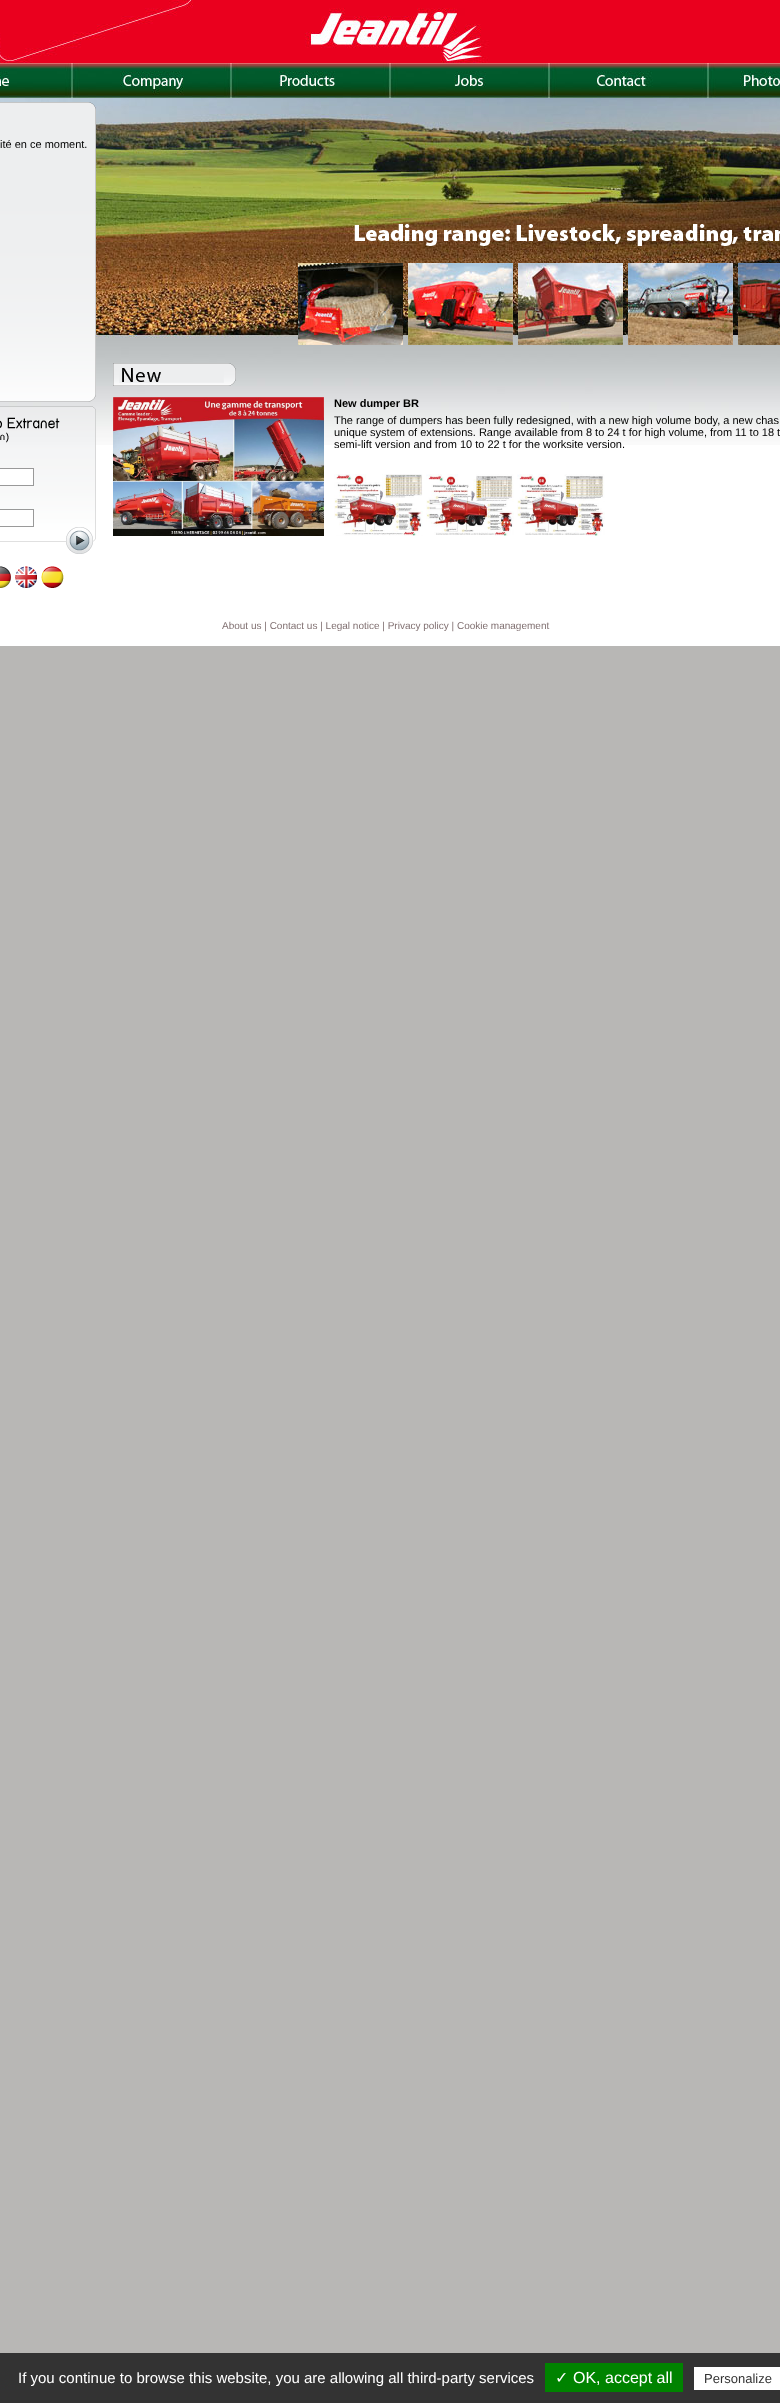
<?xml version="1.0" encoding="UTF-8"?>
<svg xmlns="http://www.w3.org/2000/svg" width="780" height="2403">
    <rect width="100%" height="100%" fill="#B8B7B5"/>
    <image x="0" y="0" width="780" height="63" href="img_01.png"/>
    <image x="0" y="63" width="72" height="35" href="img_02.png"/>
    <image x="72" y="63" width="159" height="35" href="img_03.png"/>
    <image x="231" y="63" width="159" height="35" href="img_04.png"/>
    <image x="390" y="63" width="159" height="35" href="img_05.png"/>
    <image x="549" y="63" width="159" height="35" href="img_06.png"/>
    <image x="708" y="63" width="72" height="35" href="img_07.png"/>
    <rect x="0" y="445" width="780" height="201" fill="#FFFFFF"/>
    <image x="0" y="98" width="780" height="347" href="img_08.png"/>
    <image x="0" y="102" width="96" height="440" href="img_09.png"/>
    <text x="0" y="148" font-family="Liberation Sans" font-size="11" fill="#000000">ité en ce moment.</text>
    <rect x="-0.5" y="468.5" width="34" height="17" fill="#FFFFFF" stroke="#999999"/>
    <rect x="0" y="510" width="33" height="10" fill="#FFFFFF"/>
    <rect x="-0.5" y="509.5" width="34" height="17" fill="none" stroke="#999999"/>
    <image x="66" y="527" width="27" height="27" href="img_10.png"/>
    <image x="0" y="566" width="64" height="22" href="img_11.png"/>
    <image x="354" y="224" width="426" height="22" href="img_12.png"/>
    <image x="298" y="263" width="105" height="82" href="img_13.png"/>
    <image x="408" y="263" width="105" height="82" href="img_14.png"/>
    <image x="518" y="263" width="105" height="82" href="img_15.png"/>
    <image x="628" y="263" width="105" height="82" href="img_16.png"/>
    <image x="738" y="263" width="42" height="82" href="img_17.png"/>
    <image x="113" y="363" width="123" height="23" href="img_18.png"/>
    <image x="113" y="397" width="211" height="139" href="img_19.png"/>
    <text x="334" y="407" font-family="Liberation Sans" font-size="11" font-weight="700" fill="#000000">New dumper BR</text>
    <text font-family="Liberation Sans" font-size="11" fill="#000000">
        <tspan x="334" y="424">The range of dumpers has been fully redesigned, with a new high volume body, a new chas</tspan>
        <tspan x="334" y="436">unique system of extensions. Range available from 8 to 24 t for high volume, from 11 to 18 t</tspan>
        <tspan x="334" y="448">semi-lift version and from 10 to 22 t for the worksite version.</tspan>
    </text>
    <image x="334" y="474" width="89" height="62" href="img_20.png"/>
    <image x="426" y="474" width="88" height="62" href="img_21.png"/>
    <image x="517" y="474" width="88" height="62" href="img_22.png"/>
    <text x="222" y="629" font-family="Liberation Sans" font-size="10" fill="#807071">About us | Contact us | Legal notice | Privacy policy | Cookie management</text>
    <rect x="0" y="2353" width="780" height="50" fill="#333333"/>
    <text x="18" y="2383" font-family="Liberation Sans" font-size="15" fill="#FFFFFF">If you continue to browse this website, you are allowing all third-party services</text>
    <rect x="545" y="2363" width="138" height="29" fill="#008300"/>
    <text x="555" y="2383" font-family="DejaVu Sans" font-size="16" fill="#FFFFFF">✓</text>
    <text x="573" y="2383" font-family="Liberation Sans" font-size="16" fill="#FFFFFF">OK, accept all</text>
    <rect x="694" y="2367" width="86" height="23" fill="#FFFFFF"/>
    <text x="704" y="2383" font-family="Liberation Sans" font-size="13" fill="#333333">Personalize</text>
</svg>
